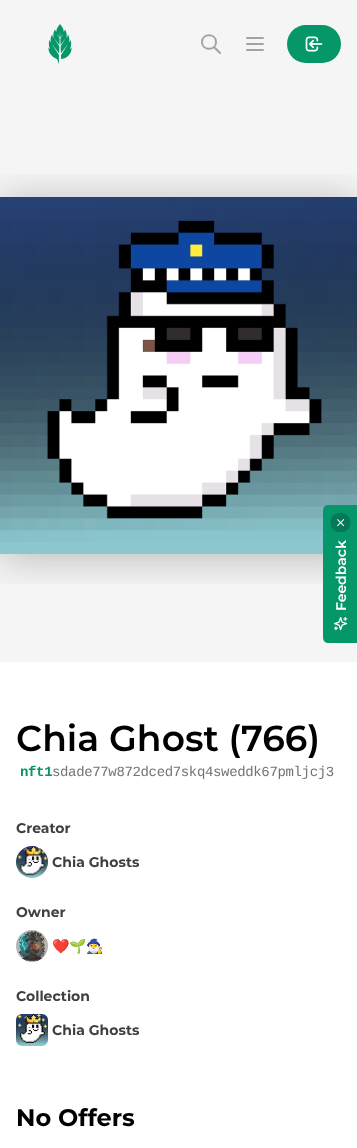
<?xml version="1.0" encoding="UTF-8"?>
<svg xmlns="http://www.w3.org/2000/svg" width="357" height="1148">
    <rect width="100%" height="100%" fill="#F5F5F5"/>
    <image x="48" y="24" width="24" height="40" href="img_01.png"/>
    <path d="M 220 53 L 214 47 M 216 42 C 216 51 202 51 202 42 C 202 33 216 33 216 42 Z" fill="none" stroke="#A3A3A3" stroke-width="2" stroke-linecap="round" stroke-linejoin="round"/>
    <path d="M 247 38 H 263 M 247 44 H 263 M 247 50 H 263" fill="none" stroke="#A3A3A3" stroke-width="2" stroke-linecap="round" stroke-linejoin="round"/>
    <rect x="287" y="25" width="54" height="38" rx="19" fill="#059669"/>
    <image x="305" y="36" width="18" height="16" href="img_02.png"/>
    <image x="0" y="174" width="357" height="410" href="img_05.png"/>
    <path d="M 323 637 V 511 C 323 507 325 505 329 505 H 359 V 643 H 329 C 325 643 323 641 323 637 Z" fill="#059669"/>
    <path d="M 330.5 522.5 C 330.5 509.5 350.5 509.5 350.5 522.5 C 350.5 535.5 330.5 535.5 330.5 522.5 Z" fill="#047857"/>
    <image x="337" y="519" width="8" height="8" href="img_03.png"/>
    <text x="346" y="611" transform="rotate(-90 346 611)" font-family="Montserrat" font-size="14" font-weight="600" fill="#FFFFFF">Feedback</text>
    <image x="334" y="617" width="14" height="14" href="img_04.png"/>
    <rect x="0" y="662" width="357" height="486" fill="#FFFFFF"/>
    <text x="16" y="751" font-family="Montserrat" font-size="36" font-weight="600" fill="#000000">Chia Ghost (766)</text>
    <text x="20" y="776" font-family="Liberation Mono" font-size="14" font-weight="700" letter-spacing="-0.35" fill="#059669">nft1</text>
    <text x="52" y="776" font-family="Liberation Mono" font-size="14" letter-spacing="-0.35" fill="#737373">sdade77w872dced7skq4sweddk67pmljcj3</text>
    <text x="16" y="833" font-family="Montserrat" font-size="14" font-weight="700" fill="#404040">Creator</text>
    <image x="16" y="846" width="32" height="32" href="img_06.png"/>
    <text x="52" y="867" font-family="Montserrat" font-size="14" font-weight="700" fill="#404040">Chia Ghosts</text>
    <text x="16" y="917" font-family="Montserrat" font-size="14" font-weight="700" fill="#404040">Owner</text>
    <image x="16" y="930" width="32" height="32" href="img_07.png"/>
    <text x="52" y="951" font-family="Noto Color Emoji" font-size="14" font-weight="700" fill="#404040">❤️🌱🧙‍♂️</text>
    <text x="16" y="1001" font-family="Montserrat" font-size="14" font-weight="700" fill="#404040">Collection</text>
    <image x="16" y="1014" width="32" height="32" href="img_08.png"/>
    <text x="52" y="1035" font-family="Montserrat" font-size="14" font-weight="700" fill="#404040">Chia Ghosts</text>
    <text x="16" y="1126" font-family="Montserrat" font-size="24" font-weight="700" fill="#000000">No Offers</text>
</svg>
